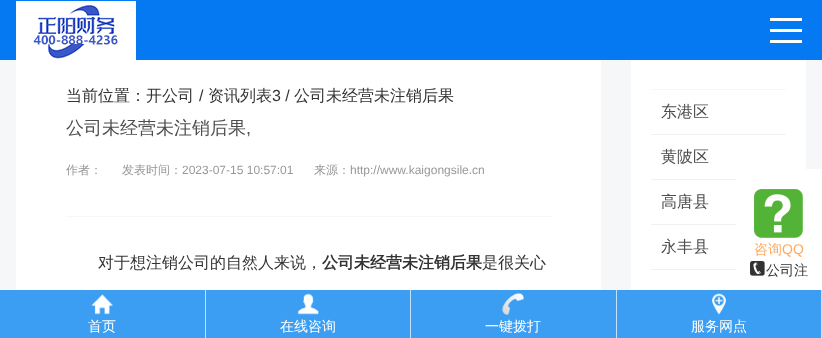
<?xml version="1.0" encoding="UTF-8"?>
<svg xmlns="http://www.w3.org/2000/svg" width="822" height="338">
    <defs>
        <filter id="blur1" x="-50%" y="-200%" width="200%" height="500%"><feGaussianBlur stdDeviation="0.5"/></filter>
    </defs>
    <rect width="100%" height="100%" fill="#F5F7F9"/>
    <rect x="0" y="0" width="822" height="60" fill="#0579F2"/>
    <image x="16" y="1" width="120" height="59" href="img_01.png"/>
    <rect x="770" y="18" width="32" height="3" fill="#FFFFFF"/>
    <rect x="770" y="29" width="32" height="3" fill="#FFFFFF"/>
    <rect x="770" y="40" width="32" height="3" fill="#FFFFFF"/>
    <rect x="16" y="60" width="585" height="230" fill="#FFFFFF"/>
    <text x="66" y="101" font-family="WenQuanYi Zen Hei" font-size="16" font-weight="500" fill="#333333">当前位置：开公司</text>
    <text x="199" y="101" font-family="Liberation Sans" font-size="16" fill="#333333">/</text>
    <text x="208" y="101" font-family="WenQuanYi Zen Hei" font-size="16" font-weight="500" fill="#333333">资讯列表</text>
    <text x="272" y="101" font-family="Liberation Sans" font-size="16" fill="#333333">3 /</text>
    <text x="294" y="101" font-family="WenQuanYi Zen Hei" font-size="16" font-weight="500" fill="#333333">公司未经营未注销后果</text>
    <text x="66" y="134" font-family="WenQuanYi Zen Hei" font-size="18" font-weight="500" fill="#4E4E4E">公司未经营未注销后果</text>
    <text x="246" y="134" font-family="Liberation Sans" font-size="18" fill="#4E4E4E">,</text>
    <text x="66" y="174" font-family="WenQuanYi Zen Hei" font-size="12" font-weight="500" fill="#989898">作者：</text>
    <text x="122" y="174" font-family="WenQuanYi Zen Hei" font-size="12" font-weight="500" fill="#989898">发表时间：</text>
    <text x="182" y="174" font-family="Liberation Sans" font-size="12" fill="#989898">2023-07-15 10:57:01</text>
    <text x="314" y="174" font-family="WenQuanYi Zen Hei" font-size="12" font-weight="500" fill="#989898">来源：</text>
    <text x="350" y="174" font-family="Liberation Sans" font-size="12" fill="#989898">http://www.kaigongsile.cn</text>
    <rect x="66" y="216" width="485" height="1" fill="#F7F7F7"/>
    <text x="98" y="268" font-family="WenQuanYi Zen Hei" font-size="16" font-weight="500" fill="#333333">对于想注销公司的自然人来说，</text>
    <text x="322" y="268" font-family="WenQuanYi Zen Hei" font-size="16" font-weight="700" fill="#333333">公司未经营未注销后果</text>
    <text x="482" y="268" font-family="WenQuanYi Zen Hei" font-size="16" font-weight="500" fill="#333333">是很关心</text>
    <rect x="631" y="60" width="175" height="230" fill="#FFFFFF"/>
    <rect x="651" y="89" width="135" height="1" fill="#F7F7F7"/>
    <rect x="651" y="134" width="135" height="1" fill="#F1F1F1"/>
    <text x="661" y="117" font-family="WenQuanYi Zen Hei" font-size="16" font-weight="500" fill="#4E4E4E">东港区</text>
    <rect x="651" y="179" width="85" height="1" fill="#F1F1F1"/>
    <text x="661" y="162" font-family="WenQuanYi Zen Hei" font-size="16" font-weight="500" fill="#4E4E4E">黄陂区</text>
    <rect x="651" y="224" width="85" height="1" fill="#F1F1F1"/>
    <text x="661" y="207" font-family="WenQuanYi Zen Hei" font-size="16" font-weight="500" fill="#4E4E4E">高唐县</text>
    <rect x="651" y="269" width="85" height="1" fill="#F1F1F1"/>
    <text x="661" y="252" font-family="WenQuanYi Zen Hei" font-size="16" font-weight="500" fill="#4E4E4E">永丰县</text>
    <rect x="736" y="169" width="86" height="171" fill="#888888" filter="url(#blur1)"/>
    <rect x="736" y="169" width="86" height="121" fill="#FFFFFF"/>
    <image x="754" y="189" width="49" height="49" href="img_02.png"/>
    <text x="754" y="254" font-family="WenQuanYi Zen Hei" font-size="14" font-weight="500" fill="#FEAA5E">咨询</text>
    <text x="782" y="254" font-family="Liberation Sans" font-size="14" fill="#FEAA5E">QQ</text>
    <image x="750" y="261" width="15" height="15" href="img_03.png"/>
    <text x="766" y="275" font-family="WenQuanYi Zen Hei" font-size="14" font-weight="500" fill="#333333">公司注</text>
    <rect x="0" y="290" width="821" height="48" fill="#3B9EF3"/>
    <rect x="205" y="290" width="1" height="48" fill="#C4E2FB"/>
    <image x="91" y="294" width="22" height="21" href="img_04.png"/>
    <text x="88" y="331" font-family="WenQuanYi Zen Hei" font-size="14" font-weight="500" fill="#FFFFFF">首页</text>
    <rect x="410" y="290" width="1" height="48" fill="#C4E2FB"/>
    <image x="297" y="293" width="22" height="22" href="img_05.png"/>
    <text x="280" y="331" font-family="WenQuanYi Zen Hei" font-size="14" font-weight="500" fill="#FFFFFF">在线咨询</text>
    <rect x="616" y="290" width="1" height="48" fill="#C4E2FB"/>
    <image x="502" y="293" width="22" height="23" href="img_06.png"/>
    <text x="485" y="331" font-family="WenQuanYi Zen Hei" font-size="14" font-weight="500" fill="#FFFFFF">一键拨打</text>
    <rect x="821" y="290" width="1" height="48" fill="#C4E2FB"/>
    <image x="712" y="293" width="14" height="22" href="img_07.png"/>
    <text x="691" y="331" font-family="WenQuanYi Zen Hei" font-size="14" font-weight="500" fill="#FFFFFF">服务网点</text>
</svg>
